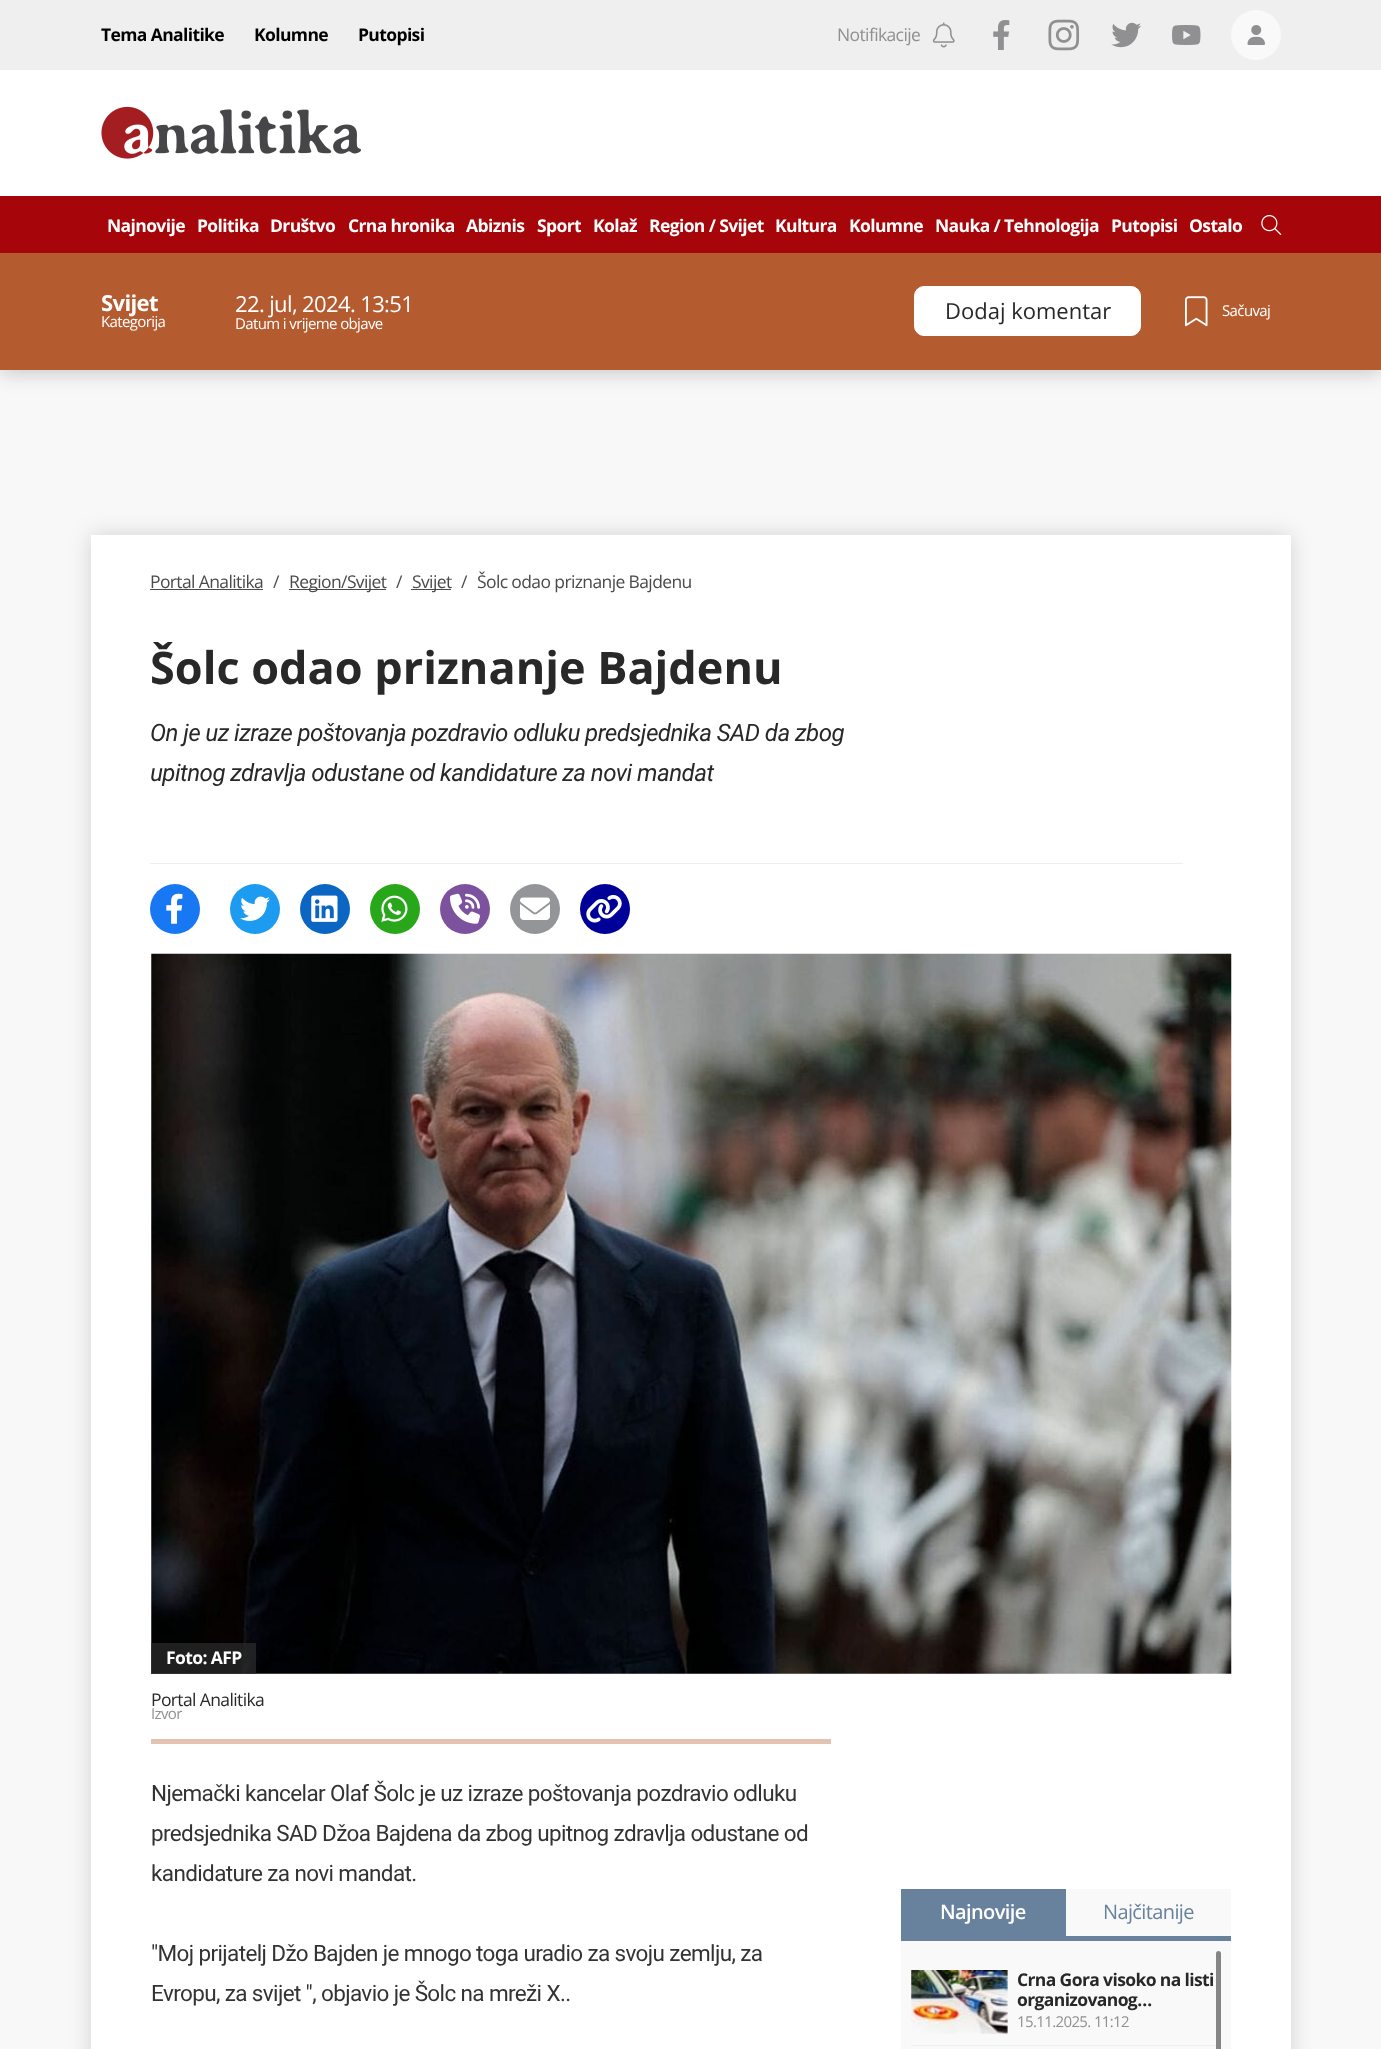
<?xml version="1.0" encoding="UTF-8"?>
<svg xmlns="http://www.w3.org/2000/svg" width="1381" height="2049">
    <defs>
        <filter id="blur1" x="-50%" y="-200%" width="200%" height="500%"><feGaussianBlur stdDeviation="10"/></filter>
        <filter id="blur2" x="-50%" y="-200%" width="200%" height="500%"><feGaussianBlur stdDeviation="11"/></filter>
    </defs>
    <rect width="100%" height="100%" fill="#FFFFFF"/>
    <rect x="0" y="0" width="1381" height="70" fill="#EFEFEF"/>
    <text x="101" y="41" font-family="Open Sans" font-size="17.5" font-weight="700" letter-spacing="-0.62" fill="#000000">Tema Analitike</text>
    <text x="254" y="41" font-family="Open Sans" font-size="17.5" font-weight="700" letter-spacing="-0.62" fill="#000000">Kolumne</text>
    <text x="358" y="41" font-family="Open Sans" font-size="17.5" font-weight="700" letter-spacing="-0.62" fill="#000000">Putopisi</text>
    <text x="837" y="41" font-family="Open Sans" font-size="17.5" letter-spacing="-0.62" fill="#909093">Notifikacije</text>
    <image x="932" y="22" width="23" height="26" href="img_01.png"/>
    <image x="993" y="20" width="17" height="30" href="img_02.png"/>
    <image x="1048" y="19" width="32" height="32" href="img_03.png"/>
    <image x="1111" y="22" width="30" height="26" href="img_04.png"/>
    <image x="1172" y="25" width="29" height="20" href="img_05.png"/>
    <circle cx="1256" cy="35" r="25" fill="#FAF9F9"/>
    <image x="1247" y="25" width="18" height="20" href="img_06.png"/>
    <image x="101" y="106" width="260" height="53" href="img_07.png"/>
    <rect x="0" y="370" width="1381" height="1679" fill="#F8F8F8"/>
    <rect x="0" y="255" width="1381" height="118" fill="#000000" fill-opacity="0.2" filter="url(#blur1)"/>
    <rect x="0" y="196" width="1381" height="57" fill="#A60509"/>
    <text x="107" y="232" font-family="Open Sans" font-size="17.5" font-weight="700" letter-spacing="-0.62" fill="#FFFFFF">Najnovije</text>
    <text x="197" y="232" font-family="Open Sans" font-size="17.5" font-weight="700" letter-spacing="-0.62" fill="#FFFFFF">Politika</text>
    <text x="270" y="232" font-family="Open Sans" font-size="17.5" font-weight="700" letter-spacing="-0.62" fill="#FFFFFF">Društvo</text>
    <text x="348" y="232" font-family="Open Sans" font-size="17.5" font-weight="700" letter-spacing="-0.62" fill="#FFFFFF">Crna hronika</text>
    <text x="466" y="232" font-family="Open Sans" font-size="17.5" font-weight="700" letter-spacing="-0.62" fill="#FFFFFF">Abiznis</text>
    <text x="537" y="232" font-family="Open Sans" font-size="17.5" font-weight="700" letter-spacing="-0.62" fill="#FFFFFF">Sport</text>
    <text x="593" y="232" font-family="Open Sans" font-size="17.5" font-weight="700" letter-spacing="-0.62" fill="#FFFFFF">Kolaž</text>
    <text x="649" y="232" font-family="Open Sans" font-size="17.5" font-weight="700" letter-spacing="-0.62" fill="#FFFFFF">Region / Svijet</text>
    <text x="775" y="232" font-family="Open Sans" font-size="17.5" font-weight="700" letter-spacing="-0.62" fill="#FFFFFF">Kultura</text>
    <text x="849" y="232" font-family="Open Sans" font-size="17.5" font-weight="700" letter-spacing="-0.62" fill="#FFFFFF">Kolumne</text>
    <text x="935" y="232" font-family="Open Sans" font-size="17.5" font-weight="700" letter-spacing="-0.62" fill="#FFFFFF">Nauka / Tehnologija</text>
    <text x="1111" y="232" font-family="Open Sans" font-size="17.5" font-weight="700" letter-spacing="-0.62" fill="#FFFFFF">Putopisi</text>
    <text x="1189" y="232" font-family="Open Sans" font-size="17.5" font-weight="700" letter-spacing="-0.62" fill="#FFFFFF">Ostalo</text>
    <image x="1261" y="215" width="21" height="20" href="img_08.png"/>
    <rect x="0" y="253" width="1381" height="117" fill="#B45C30"/>
    <text x="101" y="311" font-family="Open Sans" font-size="22" font-weight="700" letter-spacing="-0.62" fill="#FFFFFF">Svijet</text>
    <text x="101" y="327" font-family="Open Sans" font-size="15" letter-spacing="-0.62" fill="#FFFFFF">Kategorija</text>
    <text x="235" y="312" font-family="Open Sans" font-size="22" letter-spacing="-0.62" fill="#FFFFFF">22. jul, 2024. 13:51</text>
    <text x="235" y="329" font-family="Open Sans" font-size="15" letter-spacing="-0.62" fill="#FFFFFF">Datum i vrijeme objave</text>
    <rect x="914.5" y="286.5" width="226" height="49" rx="9.5" fill="#FFFFFF" stroke="#FFFFFF"/>
    <text x="945" y="319" font-family="Open Sans" font-size="22" fill="#282828">Dodaj komentar</text>
    <image x="1185" y="296" width="23" height="31" href="img_09.png"/>
    <text x="1222" y="316" font-family="Open Sans" font-size="15" letter-spacing="-0.62" fill="#FFFFFF">Sačuvaj</text>
    <rect x="91" y="535" width="1200" height="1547" fill="#000000" fill-opacity="0.15" filter="url(#blur2)"/>
    <rect x="91" y="535" width="1200" height="1514" fill="#FFFFFF"/>
    <text x="150" y="588" font-family="Open Sans" font-size="17.5" letter-spacing="-0.62" fill="#4A4A4A">Portal Analitika</text>
    <rect x="150" y="589" width="113" height="1" fill="#4A4A4A"/>
    <text x="273" y="588" font-family="Open Sans" font-size="17.5" letter-spacing="-0.62" fill="#4A4A4A">/</text>
    <rect x="289" y="589" width="97" height="1" fill="#4A4A4A"/>
    <text x="289" y="588" font-family="Open Sans" font-size="17.5" letter-spacing="-0.62" fill="#4A4A4A">Region/Svijet</text>
    <text x="396" y="588" font-family="Open Sans" font-size="17.5" letter-spacing="-0.62" fill="#4A4A4A">/</text>
    <rect x="411" y="589" width="40" height="1" fill="#4A4A4A"/>
    <text x="412" y="588" font-family="Open Sans" font-size="17.5" letter-spacing="-0.62" fill="#4A4A4A">Svijet</text>
    <text x="461" y="588" font-family="Open Sans" font-size="17.5" letter-spacing="-0.62" fill="#4A4A4A">/</text>
    <text x="477" y="588" font-family="Open Sans" font-size="17.5" letter-spacing="-0.62" fill="#4A4A4A">Šolc odao priznanje Bajdenu</text>
    <text x="150" y="684" font-family="Open Sans" font-size="45" font-weight="700" fill="#282828">Šolc odao priznanje Bajdenu</text>
    <text font-family="Roboto" font-size="24.05" font-style="italic" letter-spacing="-0.62" fill="#282828">
        <tspan x="150" y="741">On je uz izraze poštovanja pozdravio odluku predsjednika SAD da zbog</tspan>
        <tspan x="150" y="781">upitnog zdravlja odustane od kandidature za novi mandat</tspan>
    </text>
    <rect x="150" y="863" width="1033" height="1" fill="#EFEFEF"/>
    <circle cx="175" cy="909" r="25" fill="#1877F2"/>
    <image x="166" y="893" width="17" height="31" href="img_10.png"/>
    <circle cx="255" cy="909" r="25" fill="#1D9BF0"/>
    <image x="240" y="896" width="30" height="25" href="img_11.png"/>
    <circle cx="325" cy="909" r="25" fill="#0A66C2"/>
    <image x="311" y="895" width="27" height="27" href="img_12.png"/>
    <circle cx="395" cy="909" r="25" fill="#29A71A"/>
    <image x="381" y="895" width="27" height="27" href="img_13.png"/>
    <circle cx="465" cy="909" r="25" fill="#7C529E"/>
    <image x="450" y="893" width="30" height="31" href="img_14.png"/>
    <circle cx="535" cy="909" r="25" fill="#939598"/>
    <image x="520" y="897" width="30" height="23" href="img_15.png"/>
    <circle cx="605" cy="909" r="25" fill="#000099"/>
    <image x="586" y="895" width="36" height="28" href="img_16.png"/>
    <image x="151" y="953" width="1081" height="721" href="img_17.png"/>
    <rect x="151" y="1643" width="105" height="31" fill="#2C2C2C" fill-opacity="0.7"/>
    <text x="166" y="1664" font-family="Open Sans" font-size="17.5" font-weight="700" letter-spacing="-0.62" fill="#FFFFFF">Foto: AFP</text>
    <rect x="151" y="1739" width="680" height="5" fill="#E3C2B1"/>
    <text x="151" y="1706" font-family="Open Sans" font-size="17.5" letter-spacing="-0.62" fill="#282828">Portal Analitika</text>
    <text x="151" y="1719" font-family="Open Sans" font-size="15" letter-spacing="-0.62" fill="#909093">Izvor</text>
    <text font-family="Roboto" font-size="22.5" letter-spacing="-0.62" fill="#333333">
        <tspan x="151" y="1801">Njemački kancelar Olaf Šolc je uz izraze poštovanja pozdravio odluku</tspan>
        <tspan x="151" y="1841">predsjednika SAD Džoa Bajdena da zbog upitnog zdravlja odustane od</tspan>
        <tspan x="151" y="1881">kandidature za novi mandat.</tspan>
    </text>
    <text font-family="Roboto" font-size="22.5" letter-spacing="-0.62" fill="#333333">
        <tspan x="151" y="1961">"Moj prijatelj Džo Bajden je mnogo toga uradio za svoju zemlju, za</tspan>
        <tspan x="151" y="2001">Evropu, za svijet ", objavio je Šolc na mreži X..</tspan>
    </text>
    <rect x="901" y="1889" width="330" height="160" fill="#FAF9F9"/>
    <rect x="901" y="1936" width="330" height="5" fill="#68829E"/>
    <rect x="901" y="1889" width="165" height="47" fill="#68829E"/>
    <text x="940" y="1919" font-family="Open Sans" font-size="20" font-weight="600" letter-spacing="-0.62" fill="#FFFFFF">Najnovije</text>
    <text x="1103" y="1919" font-family="Open Sans" font-size="20" letter-spacing="-0.62" fill="#68829E">Najčitanije</text>
    <rect x="911" y="2045" width="310" height="1" fill="#EFEFEF"/>
    <image x="911" y="1970" width="97" height="64" href="img_18.png"/>
    <text font-family="Open Sans" font-size="17.5" font-weight="700" letter-spacing="-0.62" fill="#282828">
        <tspan x="1017" y="1986">Crna Gora visoko na listi</tspan>
        <tspan x="1017" y="2006">organizovanog…</tspan>
    </text>
    <text x="1017" y="2027" font-family="Open Sans" font-size="15" letter-spacing="-0.62" fill="#909093">15.11.2025. 11:12</text>
    <rect x="1216" y="1951" width="5" height="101" rx="2.5" fill="#858585"/>
</svg>
